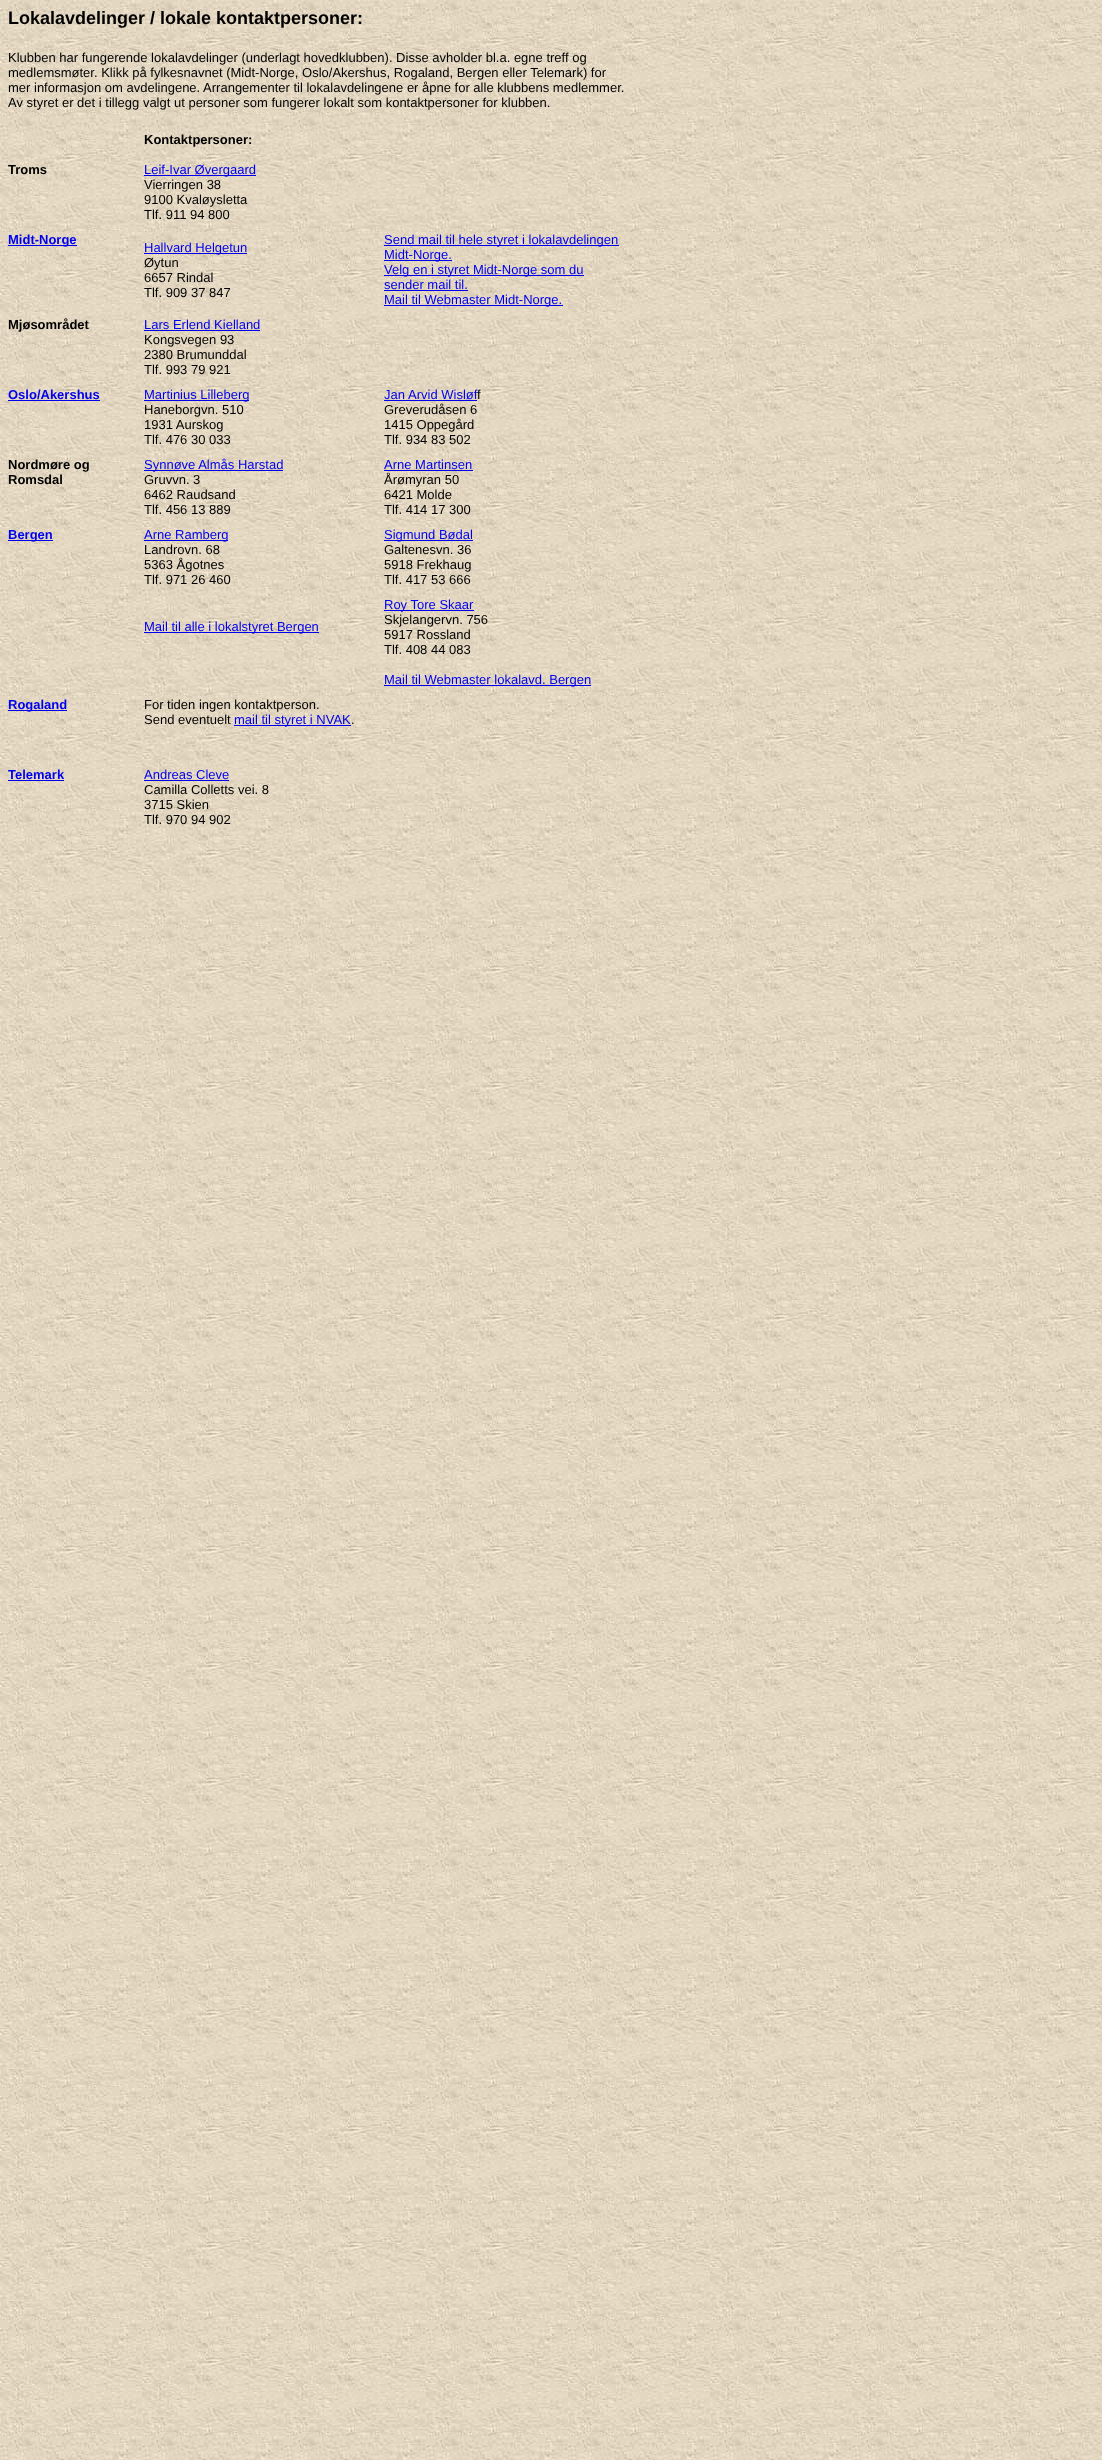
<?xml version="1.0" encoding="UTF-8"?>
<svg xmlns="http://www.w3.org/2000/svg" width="1102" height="2460">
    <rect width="100%" height="100%" fill="#FFFFFF"/>
    <image x="0" y="0" width="1102" height="2460" href="img_01.png"/>
    <text x="8" y="24" font-family="Liberation Sans" font-size="18" font-weight="700" fill="#000000">Lokalavdelinger / lokale kontaktpersoner:</text>
    <text font-family="Liberation Sans" font-size="13" fill="#000000">
        <tspan x="8" y="62">Klubben har fungerende lokalavdelinger (underlagt hovedklubben). Disse avholder bl.a. egne treff og</tspan>
        <tspan x="8" y="77">medlemsmøter. Klikk på fylkesnavnet (Midt-Norge, Oslo/Akershus, Rogaland, Bergen eller Telemark) for</tspan>
        <tspan x="8" y="92">mer informasjon om avdelingene. Arrangementer til lokalavdelingene er åpne for alle klubbens medlemmer.</tspan>
        <tspan x="8" y="107">Av styret er det i tillegg valgt ut personer som fungerer lokalt som kontaktpersoner for klubben.</tspan>
    </text>
    <text x="144" y="144" font-family="Liberation Sans" font-size="13" font-weight="700" fill="#000000">Kontaktpersoner:</text>
    <text x="8" y="174" font-family="Liberation Sans" font-size="13" font-weight="700" fill="#000000">Troms</text>
    <rect x="144" y="175" width="112" height="1" fill="#0000EE"/>
    <text x="144" y="174" font-family="Liberation Sans" font-size="13" fill="#0000EE">Leif-Ivar Øvergaard</text>
    <text font-family="Liberation Sans" font-size="13" fill="#000000">
        <tspan x="144" y="189">Vierringen 38</tspan>
        <tspan x="144" y="204">9100 Kvaløysletta</tspan>
        <tspan x="144" y="219">Tlf. 911 94 800</tspan>
    </text>
    <rect x="8" y="245" width="69" height="1" fill="#0000EE"/>
    <text x="8" y="244" font-family="Liberation Sans" font-size="13" font-weight="700" fill="#0000EE">Midt-Norge</text>
    <rect x="144" y="253" width="103" height="1" fill="#0000EE"/>
    <text x="144" y="252" font-family="Liberation Sans" font-size="13" fill="#0000EE">Hallvard Helgetun</text>
    <text font-family="Liberation Sans" font-size="13" fill="#000000">
        <tspan x="144" y="267">Øytun</tspan>
        <tspan x="144" y="282">6657 Rindal</tspan>
        <tspan x="144" y="297">Tlf. 909 37 847</tspan>
    </text>
    <rect x="384" y="245" width="235" height="1" fill="#0000EE"/>
    <text x="384" y="244" font-family="Liberation Sans" font-size="13" fill="#0000EE">Send mail til hele styret i lokalavdelingen</text>
    <rect x="384" y="260" width="68" height="1" fill="#0000EE"/>
    <text x="384" y="259" font-family="Liberation Sans" font-size="13" fill="#0000EE">Midt-Norge.</text>
    <rect x="384" y="275" width="200" height="1" fill="#0000EE"/>
    <text font-family="Liberation Sans" font-size="13" fill="#0000EE">
        <tspan x="384" y="274">Velg en i styret Midt-Norge som du</tspan>
        <tspan x="384" y="289">sender mail til.</tspan>
    </text>
    <rect x="384" y="290" width="84" height="1" fill="#0000EE"/>
    <rect x="384" y="305" width="179" height="1" fill="#0000EE"/>
    <text x="384" y="304" font-family="Liberation Sans" font-size="13" fill="#0000EE">Mail til Webmaster Midt-Norge.</text>
    <text x="8" y="329" font-family="Liberation Sans" font-size="13" font-weight="700" fill="#000000">Mjøsområdet</text>
    <text x="144" y="329" font-family="Liberation Sans" font-size="13" fill="#0000EE">Lars Erlend Kielland</text>
    <rect x="144" y="330" width="116" height="1" fill="#0000EE"/>
    <text font-family="Liberation Sans" font-size="13" fill="#000000">
        <tspan x="144" y="344">Kongsvegen 93</tspan>
        <tspan x="144" y="359">2380 Brumunddal</tspan>
        <tspan x="144" y="374">Tlf. 993 79 921</tspan>
    </text>
    <text x="8" y="399" font-family="Liberation Sans" font-size="13" font-weight="700" fill="#0000EE">Oslo/Akershus</text>
    <rect x="8" y="400" width="92" height="1" fill="#0000EE"/>
    <rect x="144" y="400" width="105" height="1" fill="#0000EE"/>
    <text x="144" y="399" font-family="Liberation Sans" font-size="13" fill="#0000EE">Martinius Lilleberg</text>
    <text font-family="Liberation Sans" font-size="13" fill="#000000">
        <tspan x="144" y="414">Haneborgvn. 510</tspan>
        <tspan x="144" y="429">1931 Aurskog</tspan>
        <tspan x="144" y="444">Tlf. 476 30 033</tspan>
    </text>
    <text x="384" y="399" font-family="Liberation Sans" font-size="13" fill="#0000EE">Jan</text>
    <rect x="384" y="400" width="93" height="1" fill="#0000EE"/>
    <text x="408" y="399" font-family="Liberation Sans" font-size="13" fill="#0000EE">Arvid Wisløf</text>
    <text x="477" y="399" font-family="Liberation Sans" font-size="13" fill="#000000">f</text>
    <text font-family="Liberation Sans" font-size="13" fill="#000000">
        <tspan x="384" y="414">Greverudåsen 6</tspan>
        <tspan x="384" y="429">1415 Oppegård</tspan>
        <tspan x="384" y="444">Tlf. 934 83 502</tspan>
    </text>
    <text font-family="Liberation Sans" font-size="13" font-weight="700" fill="#000000">
        <tspan x="8" y="469">Nordmøre og</tspan>
        <tspan x="8" y="484">Romsdal</tspan>
    </text>
    <rect x="144" y="470" width="139" height="1" fill="#0000EE"/>
    <text x="144" y="469" font-family="Liberation Sans" font-size="13" fill="#0000EE">Synnøve Almås Harstad</text>
    <text font-family="Liberation Sans" font-size="13" fill="#000000">
        <tspan x="144" y="484">Gruvvn. 3</tspan>
        <tspan x="144" y="499">6462 Raudsand</tspan>
        <tspan x="144" y="514">Tlf. 456 13 889</tspan>
    </text>
    <text x="384" y="469" font-family="Liberation Sans" font-size="13" fill="#0000EE">Arne Martinsen</text>
    <rect x="384" y="470" width="89" height="1" fill="#0000EE"/>
    <text font-family="Liberation Sans" font-size="13" fill="#000000">
        <tspan x="384" y="484">Årømyran 50</tspan>
        <tspan x="384" y="499">6421 Molde</tspan>
        <tspan x="384" y="514">Tlf. 414 17 300</tspan>
    </text>
    <rect x="8" y="540" width="45" height="1" fill="#0000EE"/>
    <text x="8" y="539" font-family="Liberation Sans" font-size="13" font-weight="700" fill="#0000EE">Bergen</text>
    <rect x="144" y="540" width="84" height="1" fill="#0000EE"/>
    <text x="144" y="539" font-family="Liberation Sans" font-size="13" fill="#0000EE">Arne Ramberg</text>
    <text font-family="Liberation Sans" font-size="13" fill="#000000">
        <tspan x="144" y="554">Landrovn. 68</tspan>
        <tspan x="144" y="569">5363 Ågotnes</tspan>
        <tspan x="144" y="584">Tlf. 971 26 460</tspan>
    </text>
    <rect x="144" y="632" width="175" height="1" fill="#0000EE"/>
    <text x="144" y="631" font-family="Liberation Sans" font-size="13" fill="#0000EE">Mail til alle i lokalstyret Bergen</text>
    <rect x="384" y="540" width="89" height="1" fill="#0000EE"/>
    <text x="384" y="539" font-family="Liberation Sans" font-size="13" fill="#0000EE">Sigmund Bødal</text>
    <text font-family="Liberation Sans" font-size="13" fill="#000000">
        <tspan x="384" y="554">Galtenesvn. 36</tspan>
        <tspan x="384" y="569">5918 Frekhaug</tspan>
        <tspan x="384" y="584">Tlf. 417 53 666</tspan>
    </text>
    <rect x="384" y="610" width="90" height="1" fill="#0000EE"/>
    <text x="384" y="609" font-family="Liberation Sans" font-size="13" fill="#0000EE">Roy Tore Skaar</text>
    <text font-family="Liberation Sans" font-size="13" fill="#000000">
        <tspan x="384" y="624">Skjelangervn. 756</tspan>
        <tspan x="384" y="639">5917 Rossland</tspan>
        <tspan x="384" y="654">Tlf. 408 44 083</tspan>
    </text>
    <rect x="384" y="685" width="207" height="1" fill="#0000EE"/>
    <text x="384" y="684" font-family="Liberation Sans" font-size="13" fill="#0000EE">Mail til Webmaster lokalavd. Bergen</text>
    <rect x="8" y="710" width="59" height="1" fill="#0000EE"/>
    <text x="8" y="709" font-family="Liberation Sans" font-size="13" font-weight="700" fill="#0000EE">Rogaland</text>
    <text font-family="Liberation Sans" font-size="13" fill="#000000">
        <tspan x="144" y="709">For tiden ingen kontaktperson.</tspan>
        <tspan x="144" y="724">Send eventuelt</tspan>
    </text>
    <rect x="234" y="725" width="117" height="1" fill="#0000EE"/>
    <text x="234" y="724" font-family="Liberation Sans" font-size="13" fill="#0000EE">mail til styret i NVAK</text>
    <text x="351" y="724" font-family="Liberation Sans" font-size="13" fill="#000000">.</text>
    <text x="8" y="779" font-family="Liberation Sans" font-size="13" font-weight="700" fill="#0000EE">Telemark</text>
    <rect x="8" y="780" width="56" height="1" fill="#0000EE"/>
    <text x="144" y="779" font-family="Liberation Sans" font-size="13" fill="#0000EE">Andreas Cleve</text>
    <rect x="144" y="780" width="85" height="1" fill="#0000EE"/>
    <text font-family="Liberation Sans" font-size="13" fill="#000000">
        <tspan x="144" y="794">Camilla Colletts vei. 8</tspan>
        <tspan x="144" y="809">3715 Skien</tspan>
        <tspan x="144" y="824">Tlf. 970 94 902</tspan>
    </text>
</svg>
